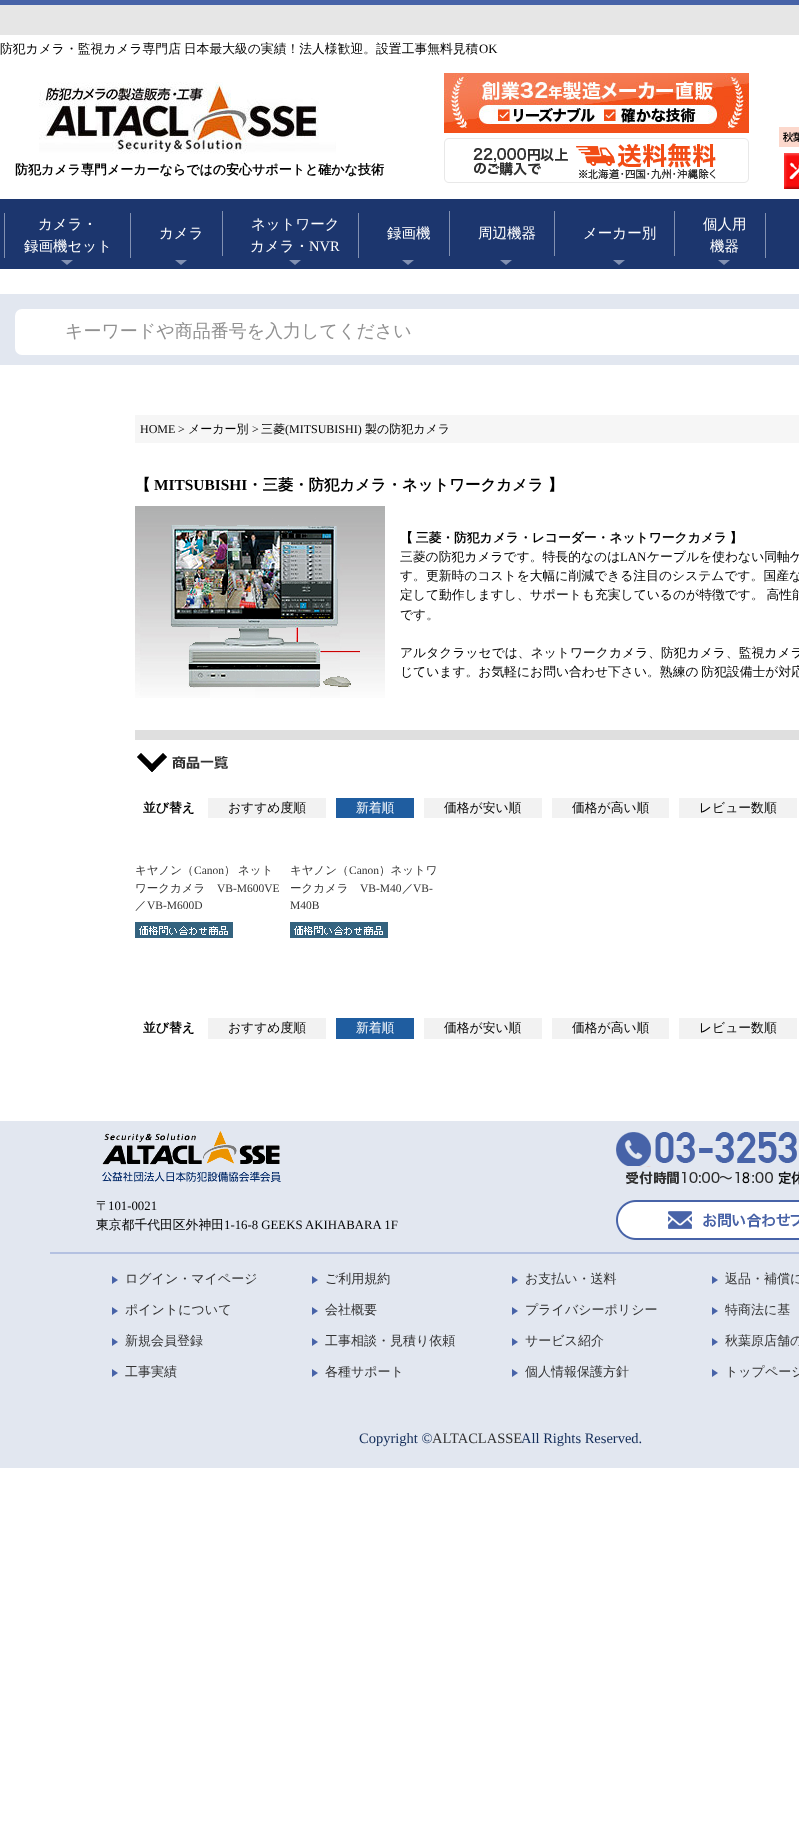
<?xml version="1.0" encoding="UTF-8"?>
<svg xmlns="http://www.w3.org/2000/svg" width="799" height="1829">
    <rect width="100%" height="100%" fill="#FFFFFF"/>
    <rect x="0" y="0" width="799" height="5" fill="#4763A8"/>
    <rect x="0" y="5" width="799" height="30" fill="#E6E6E6"/>
    <text x="0" y="53" word-spacing="-1" font-family="WenQuanYi Zen Hei" font-size="12.8" font-weight="500" fill="#000000">防犯カメラ・監視カメラ専門店 日本最大級の実績！法人様歓迎。設置工事無料見積</text>
    <text x="479" y="53" font-family="Liberation Serif" font-size="12.8" fill="#000000">OK</text>
    <image x="39" y="82" width="297" height="72" href="img_01.png"/>
    <text x="15" y="174" font-family="WenQuanYi Zen Hei" font-size="13" font-weight="700" fill="#000000">防犯カメラ専門メーカーならではの安心サポートと確かな技術</text>
    <image x="444" y="73" width="305" height="60" href="img_02.png"/>
    <image x="444" y="138" width="305" height="45" href="img_03.png"/>
    <image x="779" y="127" width="20" height="20" href="img_04.png"/>
    <image x="784" y="153" width="15" height="36" href="img_05.png"/>
    <rect x="0" y="199" width="799" height="70" fill="#1C366E"/>
    <rect x="4" y="213" width="1" height="45" fill="#8291B2"/>
    <text x="38" y="229" font-family="WenQuanYi Zen Hei" font-size="14.5" font-weight="500" fill="#FFFFFF">カメラ・</text>
    <rect x="130" y="213" width="1" height="45" fill="#8291B2"/>
    <text x="24" y="251" font-family="WenQuanYi Zen Hei" font-size="14.5" font-weight="500" fill="#FFFFFF">録画機セット</text>
    <image x="61" y="260" width="12" height="5" href="img_06.png"/>
    <text x="159" y="238" font-family="WenQuanYi Zen Hei" font-size="14.5" font-weight="500" fill="#FFFFFF">カメラ</text>
    <rect x="222" y="211" width="1" height="45" fill="#8291B2"/>
    <image x="175" y="260" width="12" height="5" href="img_06.png"/>
    <text x="251" y="229" font-family="WenQuanYi Zen Hei" font-size="14.5" font-weight="500" fill="#FFFFFF">ネットワーク</text>
    <rect x="358" y="213" width="1" height="45" fill="#8291B2"/>
    <text x="250" y="251" font-family="WenQuanYi Zen Hei" font-size="14.5" font-weight="500" fill="#FFFFFF">カメラ・</text>
    <text x="309" y="251" font-family="Liberation Serif" font-size="14.5" fill="#FFFFFF">NVR</text>
    <image x="289" y="260" width="12" height="5" href="img_06.png"/>
    <text x="387" y="238" font-family="WenQuanYi Zen Hei" font-size="14.5" font-weight="500" fill="#FFFFFF">録画機</text>
    <rect x="449" y="211" width="1" height="45" fill="#8291B2"/>
    <image x="402" y="260" width="12" height="5" href="img_06.png"/>
    <text x="478" y="238" font-family="WenQuanYi Zen Hei" font-size="14.5" font-weight="500" fill="#FFFFFF">周辺機器</text>
    <rect x="554" y="211" width="1" height="45" fill="#8291B2"/>
    <image x="500" y="260" width="12" height="5" href="img_06.png"/>
    <text x="583" y="238" font-family="WenQuanYi Zen Hei" font-size="14.5" font-weight="500" fill="#FFFFFF">メーカー別</text>
    <rect x="674" y="211" width="1" height="45" fill="#8291B2"/>
    <image x="613" y="260" width="12" height="5" href="img_06.png"/>
    <text x="703" y="229" font-family="WenQuanYi Zen Hei" font-size="14.5" font-weight="500" fill="#FFFFFF">個人用</text>
    <rect x="765" y="213" width="1" height="45" fill="#8291B2"/>
    <text x="710" y="251" font-family="WenQuanYi Zen Hei" font-size="14.5" font-weight="500" fill="#FFFFFF">機器</text>
    <image x="718" y="260" width="12" height="5" href="img_06.png"/>
    <rect x="0" y="294" width="799" height="71" fill="#E2E7F0"/>
    <rect x="15" y="309" width="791" height="46" rx="7" fill="#FFFFFF"/>
    <text x="65" y="337" font-family="WenQuanYi Zen Hei" font-size="18" font-weight="500" fill="#919191">キーワードや商品番号を入力してください</text>
    <rect x="135" y="415" width="664" height="28" fill="#F6F6F6"/>
    <text x="140" y="433" font-family="Liberation Serif" font-size="12" fill="#000000">HOME</text>
    <text x="178" y="433" font-family="Liberation Serif" font-size="12" fill="#000000">&gt;</text>
    <text x="188" y="433" font-family="WenQuanYi Zen Hei" font-size="12" font-weight="500" fill="#000000">メーカー別</text>
    <text x="252" y="433" font-family="Liberation Serif" font-size="12" fill="#000000">&gt;</text>
    <text x="261" y="433" font-family="WenQuanYi Zen Hei" font-size="12" font-weight="500" fill="#000000">三菱</text>
    <text x="285" y="433" font-family="Liberation Serif" font-size="12" fill="#000000">(MITSUBISHI)</text>
    <text x="365" y="433" font-family="WenQuanYi Zen Hei" font-size="12" font-weight="500" fill="#000000">製の防犯カメラ</text>
    <text x="135" y="490" font-family="WenQuanYi Zen Hei" font-size="15.4" font-weight="700" fill="#000000">【</text>
    <text x="154" y="490" font-family="Liberation Serif" font-size="15.4" font-weight="700" fill="#000000">MITSUBISHI</text>
    <text x="247" y="490" font-family="WenQuanYi Zen Hei" font-size="15.4" font-weight="700" fill="#000000">・三菱・防犯カメラ・ネットワークカメラ 】</text>
    <image x="135" y="506" width="250" height="192" href="img_07.png"/>
    <text x="400" y="542" word-spacing="-1" font-family="WenQuanYi Zen Hei" font-size="12.8" font-weight="700" fill="#000000">【 三菱・防犯カメラ・レコーダー・ネットワークカメラ 】</text>
    <text x="400" y="561" font-family="WenQuanYi Zen Hei" font-size="12.8" font-weight="500" fill="#000000">三菱の防犯カメラです。特長的なのは</text>
    <text x="620" y="561" font-family="Liberation Serif" font-size="12.8" fill="#000000">LAN</text>
    <text x="647" y="561" font-family="WenQuanYi Zen Hei" font-size="12.8" font-weight="500" fill="#000000">ケーブルを使わない同軸ケ</text>
    <text font-family="WenQuanYi Zen Hei" font-size="12.8" font-weight="500" fill="#000000">
        <tspan x="400" y="580">す。更新時のコストを大幅に削減できる注目のシステムです。国産な</tspan>
        <tspan x="400" y="599" word-spacing="-1">定して動作しますし、サポートも充実しているのが特徴です。 高性能</tspan>
        <tspan x="400" y="619">です。</tspan>
    </text>
    <text font-family="WenQuanYi Zen Hei" font-size="12.8" font-weight="500" fill="#000000">
        <tspan x="400" y="657">アルタクラッセでは、ネットワークカメラ、防犯カメラ、監視カメラ</tspan>
        <tspan x="400" y="676" word-spacing="-1">じています。お気軽にお問い合わせ下さい。熟練の 防犯設備士が対応</tspan>
    </text>
    <image x="137" y="753" width="91" height="19" href="img_08.png"/>
    <rect x="135" y="730" width="664" height="10" fill="#DFDFDF"/>
    <text x="143" y="812" font-family="WenQuanYi Zen Hei" font-size="12.8" font-weight="700" fill="#000000">並び替え</text>
    <rect x="208" y="798" width="118" height="20" fill="#F2F2F2"/>
    <text x="228" y="812" font-family="WenQuanYi Zen Hei" font-size="12.8" font-weight="500" fill="#000000">おすすめ度順</text>
    <rect x="336" y="798" width="78" height="20" fill="#1F5DA0"/>
    <text x="356" y="812" font-family="WenQuanYi Zen Hei" font-size="12.8" font-weight="500" fill="#FFFFFF">新着順</text>
    <rect x="424" y="798" width="118" height="20" fill="#F2F2F2"/>
    <text x="444" y="812" font-family="WenQuanYi Zen Hei" font-size="12.8" font-weight="500" fill="#000000">価格が安い順</text>
    <rect x="552" y="798" width="117" height="20" fill="#F2F2F2"/>
    <text x="572" y="812" font-family="WenQuanYi Zen Hei" font-size="12.8" font-weight="500" fill="#000000">価格が高い順</text>
    <rect x="679" y="798" width="118" height="20" fill="#F2F2F2"/>
    <text x="699" y="812" font-family="WenQuanYi Zen Hei" font-size="12.8" font-weight="500" fill="#000000">レビュー数順</text>
    <text x="135" y="874" font-family="WenQuanYi Zen Hei" font-size="11.5" font-weight="500" fill="#333333">キヤノン（</text>
    <text x="194" y="874" font-family="Liberation Serif" font-size="11.5" fill="#333333">Canon</text>
    <text x="224" y="874" word-spacing="-1" font-family="WenQuanYi Zen Hei" font-size="11.5" font-weight="500" fill="#333333">） ネット</text>
    <text x="135" y="892" font-family="WenQuanYi Zen Hei" font-size="11.5" font-weight="500" fill="#333333">ワークカメラ</text>
    <text x="217" y="892" font-family="Liberation Serif" font-size="11.5" fill="#333333">VB-M600VE</text>
    <text x="135" y="909" font-family="WenQuanYi Zen Hei" font-size="11.5" font-weight="500" fill="#333333">／</text>
    <text x="147" y="909" font-family="Liberation Serif" font-size="11.5" fill="#333333">VB-M600D</text>
    <image x="135" y="922" width="98" height="16" href="img_09.png"/>
    <text x="290" y="874" font-family="WenQuanYi Zen Hei" font-size="11.5" font-weight="500" fill="#333333">キヤノン（</text>
    <text x="349" y="874" font-family="Liberation Serif" font-size="11.5" fill="#333333">Canon</text>
    <text x="379" y="874" font-family="WenQuanYi Zen Hei" font-size="11.5" font-weight="500" fill="#333333">）ネットワ</text>
    <text x="290" y="892" font-family="WenQuanYi Zen Hei" font-size="11.5" font-weight="500" fill="#333333">ークカメラ</text>
    <text x="360" y="892" font-family="Liberation Serif" font-size="11.5" fill="#333333">VB-M40</text>
    <text x="402" y="892" font-family="WenQuanYi Zen Hei" font-size="11.5" font-weight="500" fill="#333333">／</text>
    <text x="413" y="892" font-family="Liberation Serif" font-size="11.5" fill="#333333">VB-</text>
    <text x="290" y="909" font-family="Liberation Serif" font-size="11.5" fill="#333333">M40B</text>
    <image x="290" y="922" width="98" height="16" href="img_09.png"/>
    <text x="143" y="1032" font-family="WenQuanYi Zen Hei" font-size="12.8" font-weight="700" fill="#000000">並び替え</text>
    <rect x="208" y="1018" width="118" height="21" fill="#F2F2F2"/>
    <text x="228" y="1032" font-family="WenQuanYi Zen Hei" font-size="12.8" font-weight="500" fill="#000000">おすすめ度順</text>
    <rect x="336" y="1018" width="78" height="21" fill="#1F5DA0"/>
    <text x="356" y="1032" font-family="WenQuanYi Zen Hei" font-size="12.8" font-weight="500" fill="#FFFFFF">新着順</text>
    <rect x="424" y="1018" width="118" height="21" fill="#F2F2F2"/>
    <text x="444" y="1032" font-family="WenQuanYi Zen Hei" font-size="12.8" font-weight="500" fill="#000000">価格が安い順</text>
    <rect x="552" y="1018" width="117" height="21" fill="#F2F2F2"/>
    <text x="572" y="1032" font-family="WenQuanYi Zen Hei" font-size="12.8" font-weight="500" fill="#000000">価格が高い順</text>
    <rect x="679" y="1018" width="118" height="21" fill="#F2F2F2"/>
    <text x="699" y="1032" font-family="WenQuanYi Zen Hei" font-size="12.8" font-weight="500" fill="#000000">レビュー数順</text>
    <rect x="0" y="1121" width="799" height="347" fill="#E2E7F0"/>
    <rect x="50" y="1252" width="749" height="2" fill="#B4C1E1"/>
    <image x="102" y="1131" width="179" height="51" href="img_10.png"/>
    <text x="96" y="1210" font-family="WenQuanYi Zen Hei" font-size="12.8" font-weight="500" fill="#000000">〒</text>
    <text x="108" y="1210" font-family="Liberation Serif" font-size="12.8" fill="#000000">101-0021</text>
    <text x="96" y="1229" font-family="WenQuanYi Zen Hei" font-size="12.8" font-weight="500" fill="#000000">東京都千代田区外神田</text>
    <text x="224" y="1229" font-family="Liberation Serif" font-size="12.8" fill="#000000">1-16-8 GEEKS AKIHABARA 1F</text>
    <image x="616" y="1132" width="183" height="53" href="img_11.png"/>
    <image x="616" y="1200" width="183" height="40" href="img_12.png"/>
    <image x="112" y="1276" width="6" height="8" href="img_13.png"/>
    <text x="125" y="1283" font-family="WenQuanYi Zen Hei" font-size="13" font-weight="500" fill="#333333">ログイン・マイページ</text>
    <image x="312" y="1276" width="6" height="8" href="img_13.png"/>
    <text x="325" y="1283" font-family="WenQuanYi Zen Hei" font-size="13" font-weight="500" fill="#333333">ご利用規約</text>
    <image x="512" y="1276" width="6" height="8" href="img_13.png"/>
    <text x="525" y="1283" font-family="WenQuanYi Zen Hei" font-size="13" font-weight="500" fill="#333333">お支払い・送料</text>
    <image x="712" y="1276" width="6" height="8" href="img_13.png"/>
    <text x="725" y="1283" font-family="WenQuanYi Zen Hei" font-size="13" font-weight="500" fill="#333333">返品・補償に</text>
    <image x="112" y="1307" width="6" height="8" href="img_13.png"/>
    <text x="125" y="1314" font-family="WenQuanYi Zen Hei" font-size="13" font-weight="500" fill="#333333">ポイントについて</text>
    <image x="312" y="1307" width="6" height="8" href="img_13.png"/>
    <text x="325" y="1314" font-family="WenQuanYi Zen Hei" font-size="13" font-weight="500" fill="#333333">会社概要</text>
    <image x="512" y="1307" width="6" height="8" href="img_13.png"/>
    <text x="525" y="1314" font-family="WenQuanYi Zen Hei" font-size="13" font-weight="500" fill="#333333">プライバシーポリシー</text>
    <image x="712" y="1307" width="6" height="8" href="img_13.png"/>
    <text x="725" y="1314" font-family="WenQuanYi Zen Hei" font-size="13" font-weight="500" fill="#333333">特商法に基</text>
    <image x="112" y="1338" width="6" height="8" href="img_13.png"/>
    <text x="125" y="1345" font-family="WenQuanYi Zen Hei" font-size="13" font-weight="500" fill="#333333">新規会員登録</text>
    <image x="312" y="1338" width="6" height="8" href="img_13.png"/>
    <text x="325" y="1345" font-family="WenQuanYi Zen Hei" font-size="13" font-weight="500" fill="#333333">工事相談・見積り依頼</text>
    <image x="512" y="1338" width="6" height="8" href="img_13.png"/>
    <text x="525" y="1345" font-family="WenQuanYi Zen Hei" font-size="13" font-weight="500" fill="#333333">サービス紹介</text>
    <image x="712" y="1338" width="6" height="8" href="img_13.png"/>
    <text x="725" y="1345" font-family="WenQuanYi Zen Hei" font-size="13" font-weight="500" fill="#333333">秋葉原店舗の</text>
    <image x="112" y="1369" width="6" height="8" href="img_13.png"/>
    <text x="125" y="1376" font-family="WenQuanYi Zen Hei" font-size="13" font-weight="500" fill="#333333">工事実績</text>
    <image x="312" y="1369" width="6" height="8" href="img_13.png"/>
    <text x="325" y="1376" font-family="WenQuanYi Zen Hei" font-size="13" font-weight="500" fill="#333333">各種サポート</text>
    <image x="512" y="1369" width="6" height="8" href="img_13.png"/>
    <text x="525" y="1376" font-family="WenQuanYi Zen Hei" font-size="13" font-weight="500" fill="#333333">個人情報保護方針</text>
    <image x="712" y="1369" width="6" height="8" href="img_13.png"/>
    <text x="725" y="1376" font-family="WenQuanYi Zen Hei" font-size="13" font-weight="500" fill="#333333">トップページ</text>
    <text x="359" y="1443" font-family="Liberation Serif" font-size="14.5" fill="#112B58">Copyright ©</text>
    <text x="432" y="1443" font-family="Liberation Serif" font-size="14.5" fill="#333333">ALTACLASSE</text>
    <text x="521" y="1443" font-family="Liberation Serif" font-size="14.5" fill="#112B58">All Rights Reserved.</text>
</svg>
